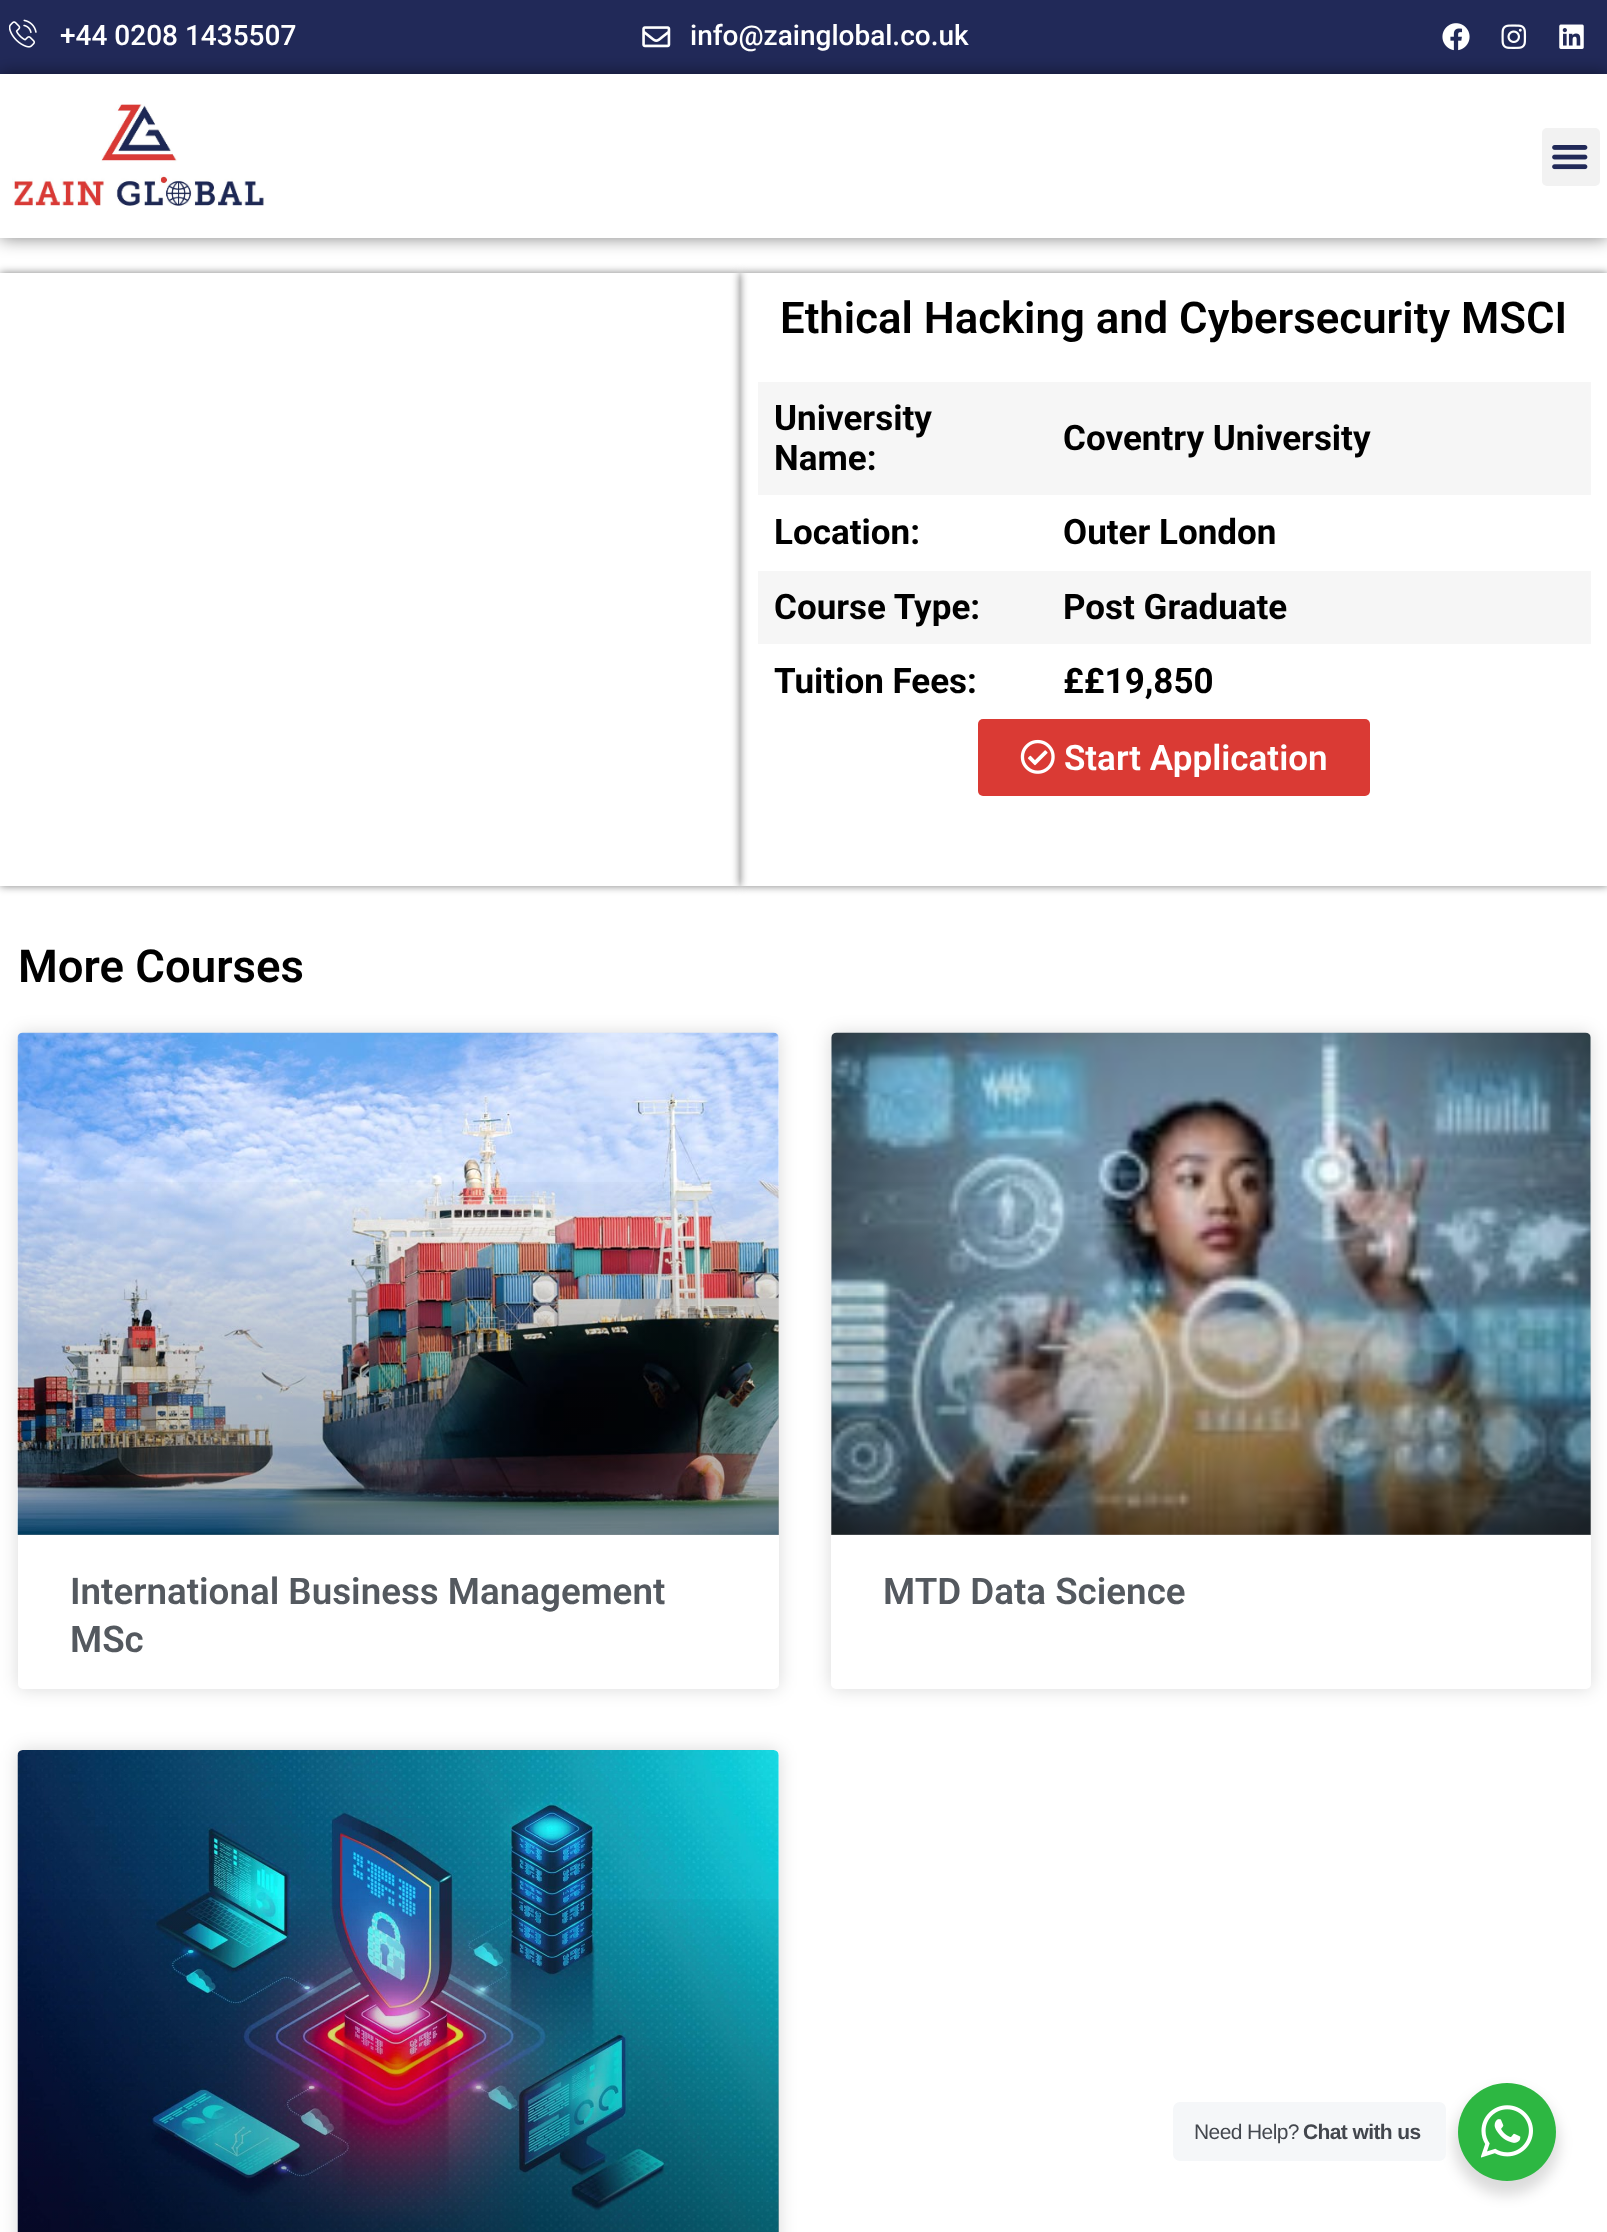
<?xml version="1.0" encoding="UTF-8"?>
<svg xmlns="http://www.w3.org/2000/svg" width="1607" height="2232">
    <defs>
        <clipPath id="clip1"><path d="M 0 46 H 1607 V 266 H 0 Z M 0 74 H 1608 V 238 H 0 Z" clip-rule="evenodd"/></clipPath>
        <filter id="blur1" x="-50%" y="-200%" width="200%" height="500%"><feGaussianBlur stdDeviation="9"/></filter>
        <clipPath id="clip2"><path d="M 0 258 H 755 V 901 H 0 Z M 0 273 H 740 V 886 H 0 Z" clip-rule="evenodd"/></clipPath>
        <filter id="blur2" x="-50%" y="-200%" width="200%" height="500%"><feGaussianBlur stdDeviation="4.5"/></filter>
        <clipPath id="clip3"><path d="M 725 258 H 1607 V 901 H 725 Z M 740 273 H 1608 V 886 H 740 Z" clip-rule="evenodd"/></clipPath>
        <linearGradient id="g1" gradientUnits="userSpaceOnUse" x1="398" y1="1535" x2="398" y2="1033"><stop offset="0" stop-color="#000000" stop-opacity="0.35"/><stop offset="0.75" stop-color="#000000" stop-opacity="0"/></linearGradient>
        <linearGradient id="g2" gradientUnits="userSpaceOnUse" x1="1211" y1="1535" x2="1211" y2="1033"><stop offset="0" stop-color="#000000" stop-opacity="0.35"/><stop offset="0.75" stop-color="#000000" stop-opacity="0"/></linearGradient>
        <linearGradient id="g3" gradientUnits="userSpaceOnUse" x1="398" y1="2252" x2="398" y2="1750"><stop offset="0" stop-color="#000000" stop-opacity="0.35"/><stop offset="0.75" stop-color="#000000" stop-opacity="0"/></linearGradient>
        <filter id="blur3" x="-50%" y="-200%" width="200%" height="500%"><feGaussianBlur stdDeviation="7"/></filter>
    </defs>
    <rect width="100%" height="100%" fill="#FFFFFF"/>
    <rect x="0" y="0" width="1607" height="74" fill="#212958"/>
    <image x="9" y="19" width="28" height="29" href="img_01.png"/>
    <text x="60" y="45" font-family="Roboto" font-size="28" font-weight="500" fill="#FFFFFF">+44 0208 1435507</text>
    <image x="642" y="26" width="29" height="22" href="img_02.png"/>
    <text x="690" y="45" font-family="Roboto" font-size="28" font-weight="500" fill="#FFFFFF">info@zainglobal.co.uk</text>
    <image x="1442" y="23" width="28" height="28" href="img_03.png"/>
    <image x="1501" y="24" width="26" height="25" href="img_04.png"/>
    <image x="1559" y="24" width="25" height="25" href="img_05.png"/>
    <g clip-path="url(#clip1)">
        <rect x="0" y="74" width="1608" height="164" fill="#000000" fill-opacity="0.5" filter="url(#blur1)"/>
    </g>
    <image x="12" y="104" width="253" height="102" href="img_06.png"/>
    <rect x="1542" y="128" width="58" height="58" rx="5" fill="#F2F2F2"/>
    <image x="1552" y="145" width="36" height="25" href="img_07.png"/>
    <g clip-path="url(#clip2)">
        <rect x="0" y="273" width="740" height="613" fill="#000000" fill-opacity="0.5" filter="url(#blur2)"/>
    </g>
    <g clip-path="url(#clip3)">
        <rect x="740" y="273" width="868" height="613" fill="#000000" fill-opacity="0.5" filter="url(#blur2)"/>
    </g>
    <text x="780" y="333" font-family="Roboto" font-size="43.75" font-weight="600" fill="#000000">Ethical Hacking and Cybersecurity MSCI</text>
    <rect x="758" y="382" width="833" height="113" fill="#F6F6F6"/>
    <text font-family="Roboto" font-size="35" font-weight="700" fill="#000000">
        <tspan x="774" y="430">University</tspan>
        <tspan x="774" y="470">Name:</tspan>
    </text>
    <text x="1063" y="450" font-family="Roboto" font-size="35" font-weight="700" fill="#000000">Coventry University</text>
    <text x="774" y="544" font-family="Roboto" font-size="35" font-weight="700" fill="#000000">Location:</text>
    <text x="1063" y="544" font-family="Roboto" font-size="35" font-weight="700" fill="#000000">Outer London</text>
    <rect x="758" y="571" width="833" height="73" fill="#F6F6F6"/>
    <text x="774" y="619" font-family="Roboto" font-size="35" font-weight="700" fill="#000000">Course Type:</text>
    <text x="1063" y="619" font-family="Roboto" font-size="35" font-weight="700" fill="#000000">Post Graduate</text>
    <text x="774" y="693" font-family="Roboto" font-size="35" font-weight="700" fill="#000000">Tuition Fees:</text>
    <text x="1063" y="693" font-family="Roboto" font-size="35" font-weight="700" fill="#000000">££19,850</text>
    <rect x="978" y="719" width="392" height="77" rx="5" fill="#DA3A34"/>
    <image x="1020" y="739" width="35" height="35" href="img_08.png"/>
    <text x="1064" y="770" font-family="Roboto" font-size="35" font-weight="600" fill="#FFFFFF">Start Application</text>
    <text x="18" y="982" font-family="Roboto" font-size="45.5" font-weight="600" fill="#000000">More Courses</text>
    <rect x="18" y="1033" width="761" height="656" rx="5" fill="#000000" fill-opacity="0.15" filter="url(#blur1)"/>
    <rect x="18" y="1033" width="761" height="656" rx="5" fill="#FFFFFF"/>
    <image x="17" y="1032" width="762" height="503" href="img_09.png"/>
    <rect x="18" y="1182" width="761" height="353" fill="url(#g1)"/>
    <text font-family="Roboto" font-size="36.75" font-weight="600" fill="#54595F">
        <tspan x="70" y="1604">International Business Management</tspan>
        <tspan x="70" y="1652">MSc</tspan>
    </text>
    <rect x="831" y="1033" width="760" height="656" rx="5" fill="#000000" fill-opacity="0.15" filter="url(#blur1)"/>
    <rect x="831" y="1033" width="760" height="656" rx="5" fill="#FFFFFF"/>
    <image x="831" y="1032" width="760" height="503" href="img_10.png"/>
    <rect x="831" y="1182" width="760" height="353" fill="url(#g2)"/>
    <text x="883" y="1604" font-family="Roboto" font-size="36.75" font-weight="600" fill="#54595F">MTD Data Science</text>
    <rect x="18" y="1750" width="761" height="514" rx="5" fill="#000000" fill-opacity="0.15" filter="url(#blur1)"/>
    <rect x="18" y="1750" width="761" height="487" rx="5" fill="#FFFFFF"/>
    <image x="17" y="1750" width="762" height="482" href="img_11.png"/>
    <rect x="18" y="1899" width="761" height="333" fill="url(#g3)"/>
    <rect x="1454" y="2090" width="105" height="105" rx="52.5" fill="#000000" fill-opacity="0.14" filter="url(#blur3)"/>
    <rect x="1173" y="2102" width="273" height="59" rx="7" fill="#F5F7F9"/>
    <text x="1194" y="2139" font-family="Liberation Sans" font-size="21" letter-spacing="-0.6" fill="#43474E">Need Help?</text>
    <text x="1303" y="2139" font-family="Liberation Sans" font-size="21" font-weight="700" letter-spacing="-0.6" fill="#43474E">Chat with us</text>
    <circle cx="1507" cy="2132" r="49" fill="#2DB742"/>
    <image x="1481" y="2105" width="52" height="53" href="img_12.png"/>
</svg>
